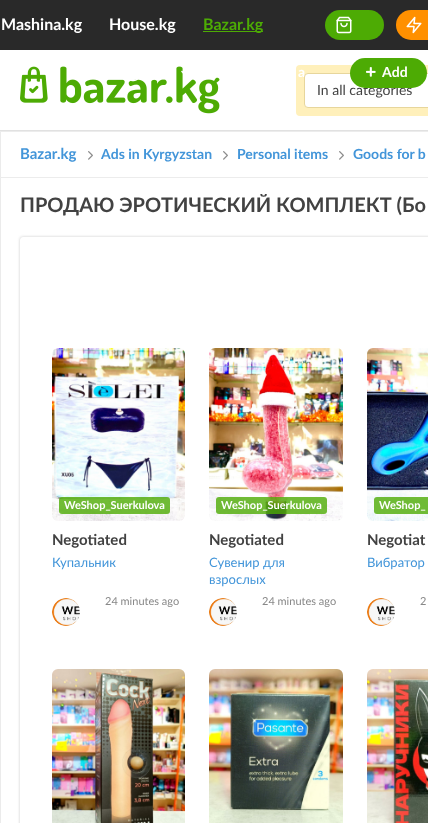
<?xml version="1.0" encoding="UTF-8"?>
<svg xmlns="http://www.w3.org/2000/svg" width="428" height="823">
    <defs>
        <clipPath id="clip1"><path d="M 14 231 H 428 V 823 H 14 Z M 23 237 H 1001 C 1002.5 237 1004 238.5 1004 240 V 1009 C 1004 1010.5 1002.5 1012 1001 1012 H 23 C 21.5 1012 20 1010.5 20 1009 V 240 C 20 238.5 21.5 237 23 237 Z" clip-rule="evenodd"/></clipPath>
        <filter id="blur1" x="-50%" y="-200%" width="200%" height="500%"><feGaussianBlur stdDeviation="1.5"/></filter>
    </defs>
    <rect width="100%" height="100%" fill="#FFFFFF"/>
    <rect x="0" y="0" width="428" height="50" fill="#292929"/>
    <text x="1" y="30" font-family="Lato" font-size="16" font-weight="700" fill="#FFFFFF">Mashina.kg</text>
    <text x="109" y="30" font-family="Lato" font-size="16" font-weight="700" fill="#FFFFFF">House.kg</text>
    <rect x="203" y="31" width="60" height="1" fill="#4DAB04"/>
    <text x="203" y="30" font-family="Lato" font-size="16" font-weight="700" fill="#4DAB04">Bazar.kg</text>
    <rect x="325" y="10" width="59" height="30" rx="15" fill="#4DAB04"/>
    <image x="336" y="16" width="16" height="18" href="img_01.png"/>
    <rect x="396" y="10" width="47" height="30" rx="15" fill="#FF9000"/>
    <image x="406" y="16" width="16" height="18" href="img_02.png"/>
    <image x="20" y="66" width="200" height="48" href="img_06.png"/>
    <image x="130" y="79" width="9" height="3" href="img_03.png"/>
    <image x="181" y="70" width="2" height="4" href="img_04.png"/>
    <rect x="296" y="65" width="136" height="51" rx="4" fill="#FFF0BB"/>
    <text x="298" y="77" font-family="Lato" font-size="14" font-weight="700" fill="#FFFFFF">a</text>
    <rect x="304.5" y="73.5" width="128" height="34" rx="3.5" fill="#FFFFFF" stroke="#E7D69C"/>
    <text x="317" y="95" font-family="Lato" font-size="14" fill="#424242">In all categories</text>
    <rect x="350" y="58" width="77" height="30" rx="15" fill="#4DAB04"/>
    <image x="366" y="67" width="10" height="10" href="img_05.png"/>
    <text x="382" y="77" font-family="Lato" font-size="14" font-weight="700" fill="#FFFFFF">Add</text>
    <rect x="0" y="130" width="428" height="1" fill="#E1E1E1"/>
    <rect x="0" y="131" width="1" height="692" fill="#EBEBEB"/>
    <rect x="0" y="131" width="428" height="1" fill="#ECECEC"/>
    <rect x="0" y="177" width="428" height="1" fill="#ECECEC"/>
    <text x="20" y="159" font-family="Lato" font-size="15" font-weight="700" fill="#4295D9">Bazar.kg</text>
    <image x="88" y="151" width="5" height="9" href="img_07.png"/>
    <text x="101" y="159" font-family="Lato" font-size="14" font-weight="700" fill="#4295D9">Ads in Kyrgyzstan</text>
    <image x="223" y="151" width="5" height="9" href="img_07.png"/>
    <text x="237" y="159" font-family="Lato" font-size="14" font-weight="700" fill="#4295D9">Personal items</text>
    <image x="339" y="151" width="5" height="9" href="img_07.png"/>
    <text x="353" y="159" font-family="Lato" font-size="14" font-weight="700" fill="#4295D9">Goods for b</text>
    <text x="20" y="212" font-family="Lato" font-size="20" font-weight="700" fill="#424242">ПРОДАЮ ЭРОТИЧЕСКИЙ КОМПЛЕКТ (Бо</text>
    <g clip-path="url(#clip1)">
        <rect x="20" y="237" width="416" height="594" rx="3" fill="#CCCCCC" filter="url(#blur1)"/>
    </g>
    <image x="52" y="348" width="133" height="173" href="img_08.png"/>
    <rect x="59" y="497" width="111" height="17" rx="3" fill="#4DAB04" fill-opacity="0.8"/>
    <text x="64" y="509" font-family="Lato" font-size="11" font-weight="700" fill="#FFFFFF">WeShop_Suerkulova</text>
    <text x="52" y="545" font-family="Lato" font-size="15" font-weight="700" fill="#424242">Negotiated</text>
    <text x="52" y="567" font-family="Lato" font-size="13" fill="#4295D9">Купальник</text>
    <image x="52" y="598" width="28" height="28" href="img_09.png"/>
    <text x="105" y="605" font-family="Lato" font-size="11" fill="#888888">24 minutes ago</text>
    <image x="209" y="348" width="134" height="173" href="img_10.png"/>
    <rect x="216" y="497" width="111" height="17" rx="3" fill="#4DAB04" fill-opacity="0.8"/>
    <text x="221" y="509" font-family="Lato" font-size="11" font-weight="700" fill="#FFFFFF">WeShop_Suerkulova</text>
    <text x="209" y="545" font-family="Lato" font-size="15" font-weight="700" fill="#424242">Negotiated</text>
    <text font-family="Lato" font-size="13" fill="#4295D9">
        <tspan x="209" y="567">Сувенир для</tspan>
        <tspan x="209" y="584">взрослых</tspan>
    </text>
    <image x="209" y="598" width="28" height="28" href="img_09.png"/>
    <text x="262" y="605" font-family="Lato" font-size="11" fill="#888888">24 minutes ago</text>
    <image x="367" y="348" width="61" height="173" href="img_11.png"/>
    <rect x="374" y="497" width="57" height="17" rx="3" fill="#4DAB04" fill-opacity="0.8"/>
    <text x="379" y="509" font-family="Lato" font-size="11" font-weight="700" fill="#FFFFFF">WeShop_</text>
    <text x="367" y="545" font-family="Lato" font-size="15" font-weight="700" fill="#424242">Negotiat</text>
    <text x="367" y="567" font-family="Lato" font-size="13" fill="#4295D9">Вибратор</text>
    <image x="367" y="598" width="28" height="28" href="img_12.png"/>
    <text x="420" y="605" font-family="Lato" font-size="11" fill="#888888">2</text>
    <image x="52" y="669" width="133" height="154" href="img_13.png"/>
    <image x="209" y="669" width="134" height="154" href="img_14.png"/>
    <image x="367" y="669" width="61" height="154" href="img_15.png"/>
</svg>
